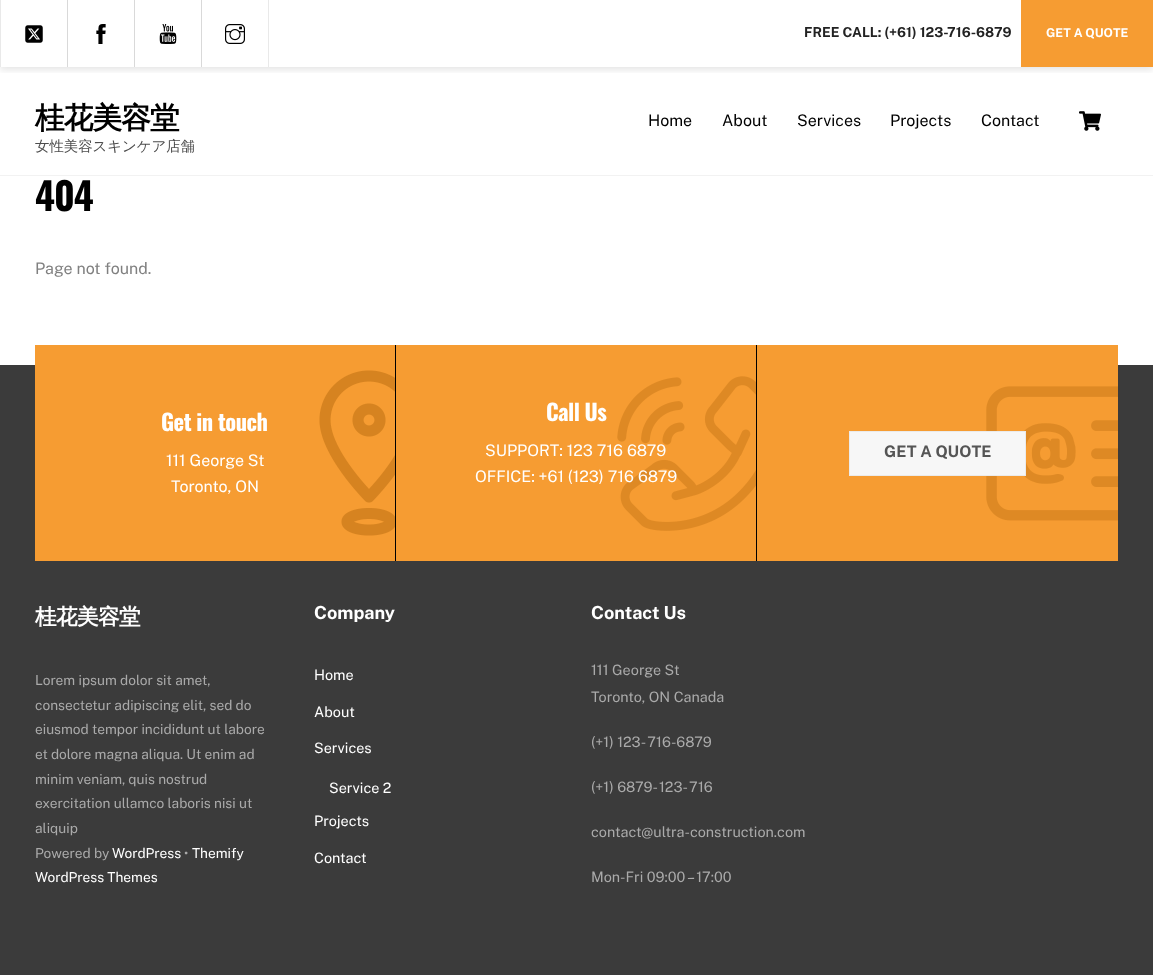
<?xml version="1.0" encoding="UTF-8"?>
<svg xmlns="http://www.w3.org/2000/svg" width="1153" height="975">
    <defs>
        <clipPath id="clip1"><rect x="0" y="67" width="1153" height="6"/></clipPath>
        <filter id="blur1" x="-50%" y="-200%" width="200%" height="500%"><feGaussianBlur stdDeviation="3.5"/></filter>
    </defs>
    <rect width="100%" height="100%" fill="#FFFFFF"/>
    <rect x="0" y="175" width="1153" height="1" fill="#F2F2F2"/>
    <g clip-path="url(#clip1)">
        <rect x="0" y="3" width="1153" height="67" fill="#000000" fill-opacity="0.1" filter="url(#blur1)"/>
    </g>
    <rect x="67" y="0" width="1" height="67" fill="#D9D9D9"/>
    <rect x="0" y="0" width="1" height="67" fill="#E9E9E9"/>
    <image x="25" y="25" width="18" height="18" href="img_01.png"/>
    <rect x="134" y="0" width="1" height="67" fill="#D9D9D9"/>
    <image x="96" y="24" width="10" height="20" href="img_02.png"/>
    <rect x="201" y="0" width="1" height="67" fill="#D9D9D9"/>
    <image x="159" y="24" width="18" height="20" href="img_03.png"/>
    <rect x="268" y="0" width="1" height="67" fill="#E9E9E9"/>
    <image x="225" y="24" width="20" height="20" href="img_04.png"/>
    <text x="804" y="37" font-family="Public Sans" font-size="13.7" font-weight="700" fill="#222222">FREE CALL: (+61) 123-716-6879</text>
    <rect x="1021" y="0" width="132" height="67" fill="#F69C32"/>
    <text x="1046" y="37" font-family="Public Sans" font-size="12.25" font-weight="700" fill="#FFFFFF">GET A QUOTE</text>
    <text x="35" y="128" font-family="WenQuanYi Zen Hei" font-size="29.5" font-weight="700" letter-spacing="-0.75" fill="#000000">桂花美容堂</text>
    <text x="35" y="151" font-family="WenQuanYi Zen Hei" font-size="14.4" font-weight="500" fill="#4D4D4D">女性美容スキンケア店舗</text>
    <text x="648" y="126" font-family="Public Sans" font-size="16" fill="#000000">Home</text>
    <text x="722" y="126" font-family="Public Sans" font-size="16" fill="#000000">About</text>
    <text x="797" y="126" font-family="Public Sans" font-size="16" fill="#000000">Services</text>
    <text x="890" y="126" font-family="Public Sans" font-size="16" fill="#000000">Projects</text>
    <text x="981" y="126" font-family="Public Sans" font-size="16" fill="#000000">Contact</text>
    <image x="1079" y="111" width="22" height="20" href="img_05.png"/>
    <text x="35" y="211" font-family="Oswald" font-size="38" font-weight="700" letter-spacing="-1" fill="#000000">404</text>
    <text x="35" y="274" font-family="Public Sans" font-size="16" fill="#808080">Page not found.</text>
    <rect x="0" y="365" width="1153" height="610" fill="#3B3B3B"/>
    <rect x="35" y="345" width="360" height="216" fill="#F69C32"/>
    <image x="319" y="370" width="76" height="166" href="img_06.png"/>
    <rect x="395" y="345" width="1" height="216" fill="#000000"/>
    <text x="161" y="431" font-family="Oswald" font-size="22.5" font-weight="700" letter-spacing="-0.5" fill="#FFFFFF">Get in touch</text>
    <text x="166" y="466" font-family="Public Sans" font-size="16" fill="#FFFFFF">111 George St</text>
    <text x="171" y="492" font-family="Public Sans" font-size="16" fill="#FFFFFF">Toronto, ON</text>
    <rect x="396" y="345" width="360" height="216" fill="#F69C32"/>
    <image x="617" y="376" width="139" height="155" href="img_07.png"/>
    <rect x="756" y="345" width="1" height="216" fill="#000000"/>
    <text x="546" y="421" font-family="Oswald" font-size="22.5" font-weight="700" letter-spacing="-0.5" fill="#FFFFFF">Call Us</text>
    <text x="485" y="456" font-family="Public Sans" font-size="16" fill="#FFFFFF">SUPPORT: 123 716 6879</text>
    <text x="475" y="482" font-family="Public Sans" font-size="16" fill="#FFFFFF">OFFICE: +61 (123) 716 6879</text>
    <rect x="757" y="345" width="361" height="216" fill="#F69C32"/>
    <image x="986" y="386" width="132" height="135" href="img_08.png"/>
    <rect x="849.5" y="431.5" width="176" height="44" fill="#F7F7F7" stroke="#EBEBEB"/>
    <text x="884" y="457" font-family="Public Sans" font-size="16" font-weight="700" fill="#555555">GET A QUOTE</text>
    <text x="35" y="624" font-family="WenQuanYi Zen Hei" font-size="21.5" font-weight="700" letter-spacing="-0.5" fill="#FFFFFF">桂花美容堂</text>
    <text font-family="Public Sans" font-size="13.7" fill="#AAAAAA">
        <tspan x="35" y="685">Lorem ipsum dolor sit amet,</tspan>
        <tspan x="35" y="710">consectetur adipiscing elit, sed do</tspan>
        <tspan x="35" y="734">eiusmod tempor incididunt ut labore</tspan>
        <tspan x="35" y="759">et dolore magna aliqua. Ut enim ad</tspan>
        <tspan x="35" y="784">minim veniam, quis nostrud</tspan>
        <tspan x="35" y="808">exercitation ullamco laboris nisi ut</tspan>
        <tspan x="35" y="833">aliquip</tspan>
        <tspan x="35" y="858">Powered by</tspan>
    </text>
    <text x="112" y="858" font-family="Public Sans" font-size="13.7" fill="#FFFFFF">WordPress</text>
    <text x="184" y="858" font-family="Public Sans" font-size="13.7" fill="#AAAAAA">•</text>
    <text x="192" y="858" font-family="Public Sans" font-size="13.7" fill="#FFFFFF">Themify</text>
    <text x="35" y="882" font-family="Public Sans" font-size="13.7" fill="#FFFFFF">WordPress Themes</text>
    <text x="314" y="619" font-family="Public Sans" font-size="18" font-weight="700" fill="#FFFFFF">Company</text>
    <text x="314" y="680" font-family="Public Sans" font-size="14.4" fill="#FFFFFF">Home</text>
    <text x="314" y="717" font-family="Public Sans" font-size="14.4" fill="#FFFFFF">About</text>
    <text x="314" y="753" font-family="Public Sans" font-size="14.4" fill="#FFFFFF">Services</text>
    <text x="329" y="793" font-family="Public Sans" font-size="14.4" fill="#FFFFFF">Service 2</text>
    <text x="314" y="826" font-family="Public Sans" font-size="14.4" fill="#FFFFFF">Projects</text>
    <text x="314" y="863" font-family="Public Sans" font-size="14.4" fill="#FFFFFF">Contact</text>
    <text x="591" y="619" font-family="Public Sans" font-size="18" font-weight="700" fill="#FFFFFF">Contact Us</text>
    <text font-family="Public Sans" font-size="14.4" fill="#AAAAAA">
        <tspan x="591" y="675">111 George St</tspan>
        <tspan x="591" y="702">Toronto, ON Canada</tspan>
    </text>
    <text x="591" y="747" font-family="Public Sans" font-size="14.4" fill="#AAAAAA">(+1) 123- 716-6879</text>
    <text x="591" y="792" font-family="Public Sans" font-size="14.4" fill="#AAAAAA">(+1) 6879- 123- 716</text>
    <text x="591" y="837" font-family="Public Sans" font-size="14.4" fill="#AAAAAA">contact@ultra-construction.com</text>
    <text x="591" y="882" font-family="Public Sans" font-size="14.4" fill="#AAAAAA">Mon-Fri 09:00 – 17:00</text>
</svg>
